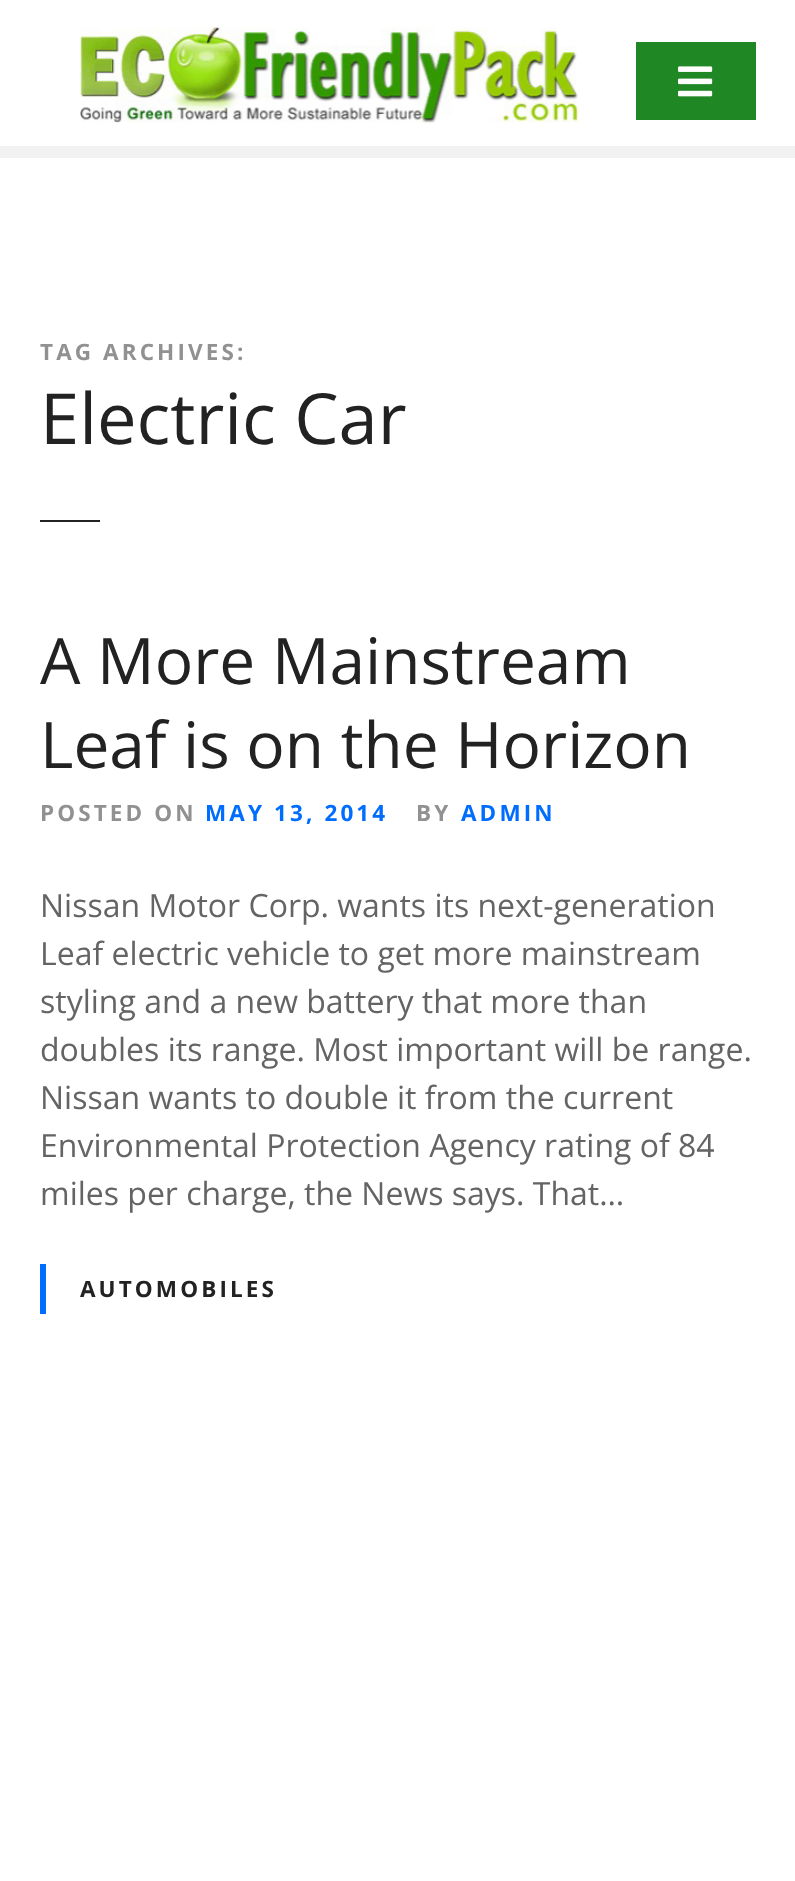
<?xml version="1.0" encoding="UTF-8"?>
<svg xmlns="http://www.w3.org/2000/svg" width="795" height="1881">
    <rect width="100%" height="100%" fill="#FFFFFF"/>
    <image x="80" y="27" width="499" height="96" href="img_01.png"/>
    <rect x="636" y="42" width="120" height="78" fill="#1F8724"/>
    <image x="678" y="66" width="35" height="31" href="img_02.png"/>
    <rect x="0" y="146" width="795" height="12" fill="#F2F2F2"/>
    <text x="40" y="360" font-family="Open Sans" font-size="22.5" font-weight="700" letter-spacing="3.1" fill="#919191">TAG ARCHIVES:</text>
    <text x="40" y="444" font-family="Open Sans" font-size="70.5" fill="#222222">Electric Car</text>
    <rect x="40" y="520" width="60" height="2" fill="#222222"/>
    <text font-family="Open Sans" font-size="64" fill="#222222">
        <tspan x="40" y="684">A More Mainstream</tspan>
        <tspan x="40" y="768">Leaf is on the Horizon</tspan>
    </text>
    <text x="40" y="821" font-family="Open Sans" font-size="22.5" font-weight="700" letter-spacing="3.1" fill="#919191">POSTED ON</text>
    <text x="205" y="821" font-family="Open Sans" font-size="22.5" font-weight="700" letter-spacing="3.1" fill="#016DFF">MAY 13, 2014</text>
    <text x="416" y="821" font-family="Open Sans" font-size="22.5" font-weight="700" letter-spacing="3.1" fill="#919191">BY</text>
    <text x="461" y="821" font-family="Open Sans" font-size="22.5" font-weight="700" letter-spacing="3.1" fill="#016DFF">ADMIN</text>
    <text font-family="Open Sans" font-size="32" fill="#646464">
        <tspan x="40" y="917">Nissan Motor Corp. wants its next-generation</tspan>
        <tspan x="40" y="965">Leaf electric vehicle to get more mainstream</tspan>
        <tspan x="40" y="1013">styling and a new battery that more than</tspan>
        <tspan x="40" y="1061">doubles its range. Most important will be range.</tspan>
        <tspan x="40" y="1109">Nissan wants to double it from the current</tspan>
        <tspan x="40" y="1157">Environmental Protection Agency rating of 84</tspan>
        <tspan x="40" y="1205">miles per charge, the News says. That…</tspan>
    </text>
    <rect x="40" y="1264" width="6" height="50" fill="#016DFF"/>
    <text x="80" y="1297" font-family="Open Sans" font-size="22.5" font-weight="700" letter-spacing="3.1" fill="#222222">AUTOMOBILES</text>
</svg>
